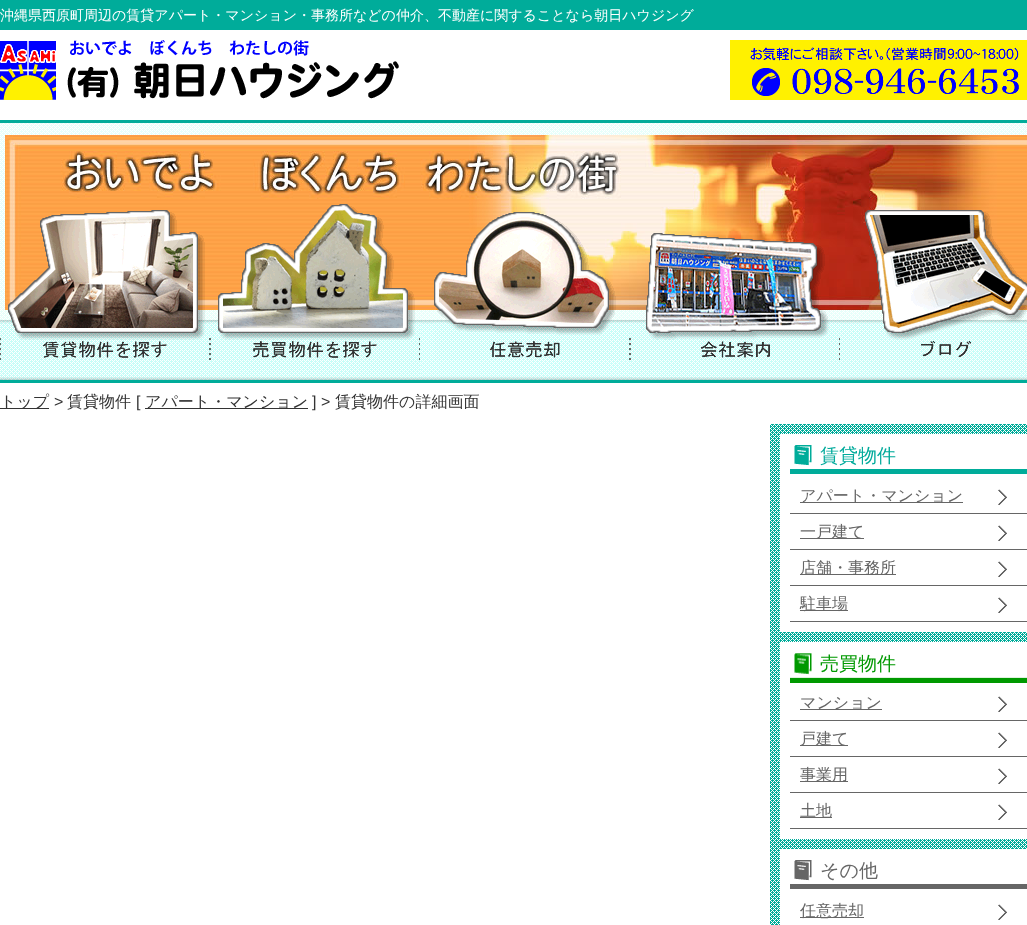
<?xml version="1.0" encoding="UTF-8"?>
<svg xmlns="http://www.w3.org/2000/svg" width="1027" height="925">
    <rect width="100%" height="100%" fill="#FFFFFF"/>
    <image x="0" y="0" width="1027" height="383" href="img_01.png"/>
    <text x="0" y="20" font-family="WenQuanYi Zen Hei" font-size="14" font-weight="500" fill="#FFFFFF">沖縄県西原町周辺の賃貸アパート・マンション・事務所などの仲介、不動産に関することなら朝日ハウジング</text>
    <image x="0" y="40" width="399" height="60" href="img_02.png"/>
    <image x="730" y="40" width="297" height="60" href="img_03.png"/>
    <image x="5" y="135" width="1022" height="175" href="img_04.png"/>
    <image x="0" y="210" width="210" height="170" href="img_05.png"/>
    <image x="210" y="204" width="210" height="176" href="img_06.png"/>
    <image x="434" y="212" width="196" height="148" href="img_07.png"/>
    <image x="630" y="233" width="210" height="147" href="img_08.png"/>
    <image x="841" y="210" width="186" height="170" href="img_09.png"/>
    <rect x="0" y="408" width="49" height="1" fill="#333333"/>
    <text x="0" y="407" font-family="WenQuanYi Zen Hei" font-size="16" font-weight="500" fill="#333333">トップ</text>
    <text x="54" y="407" font-family="Liberation Sans" font-size="16" fill="#333333">&gt;</text>
    <text x="67" y="407" font-family="WenQuanYi Zen Hei" font-size="16" font-weight="500" fill="#333333">賃貸物件</text>
    <text x="136" y="407" font-family="Liberation Sans" font-size="16" fill="#333333">[</text>
    <rect x="145" y="408" width="163" height="1" fill="#333333"/>
    <text x="145" y="407" font-family="WenQuanYi Zen Hei" font-size="16" font-weight="500" fill="#333333">アパート・マンション</text>
    <text x="312" y="407" font-family="Liberation Sans" font-size="16" fill="#333333">] &gt;</text>
    <text x="335" y="407" font-family="WenQuanYi Zen Hei" font-size="16" font-weight="500" fill="#333333">賃貸物件の詳細画面</text>
    <image x="770" y="424" width="257" height="501" href="img_10.png"/>
    <rect x="780" y="434" width="247" height="198" fill="#FFFFFF"/>
    <image x="790" y="445" width="237" height="29" href="img_11.png"/>
    <text x="820" y="462" font-family="WenQuanYi Zen Hei" font-size="19" font-weight="500" fill="#00AA9B">賃貸物件</text>
    <image x="998" y="489" width="9" height="16" href="img_12.png"/>
    <rect x="790" y="513" width="237" height="1" fill="#666666"/>
    <rect x="800" y="502" width="163" height="1" fill="#666666"/>
    <text x="800" y="501" font-family="WenQuanYi Zen Hei" font-size="16" font-weight="500" fill="#666666">アパート・マンション</text>
    <image x="998" y="525" width="9" height="16" href="img_12.png"/>
    <rect x="790" y="549" width="237" height="1" fill="#666666"/>
    <rect x="800" y="538" width="64" height="1" fill="#666666"/>
    <text x="800" y="537" font-family="WenQuanYi Zen Hei" font-size="16" font-weight="500" fill="#666666">一戸建て</text>
    <image x="998" y="561" width="9" height="16" href="img_12.png"/>
    <rect x="790" y="585" width="237" height="1" fill="#666666"/>
    <rect x="800" y="574" width="96" height="1" fill="#666666"/>
    <text x="800" y="573" font-family="WenQuanYi Zen Hei" font-size="16" font-weight="500" fill="#666666">店舗・事務所</text>
    <image x="998" y="597" width="9" height="16" href="img_12.png"/>
    <rect x="790" y="621" width="237" height="1" fill="#666666"/>
    <rect x="800" y="610" width="48" height="1" fill="#666666"/>
    <text x="800" y="609" font-family="WenQuanYi Zen Hei" font-size="16" font-weight="500" fill="#666666">駐車場</text>
    <rect x="780" y="642" width="247" height="197" fill="#FFFFFF"/>
    <image x="790" y="653" width="237" height="30" href="img_13.png"/>
    <text x="820" y="670" font-family="WenQuanYi Zen Hei" font-size="19" font-weight="500" fill="#009900">売買物件</text>
    <image x="998" y="696" width="9" height="16" href="img_12.png"/>
    <rect x="790" y="720" width="237" height="1" fill="#666666"/>
    <rect x="800" y="709" width="82" height="1" fill="#666666"/>
    <text x="800" y="708" font-family="WenQuanYi Zen Hei" font-size="16" font-weight="500" fill="#666666">マンション</text>
    <image x="998" y="732" width="9" height="16" href="img_12.png"/>
    <rect x="790" y="756" width="237" height="1" fill="#666666"/>
    <rect x="800" y="745" width="48" height="1" fill="#666666"/>
    <text x="800" y="744" font-family="WenQuanYi Zen Hei" font-size="16" font-weight="500" fill="#666666">戸建て</text>
    <image x="998" y="768" width="9" height="16" href="img_12.png"/>
    <rect x="790" y="792" width="237" height="1" fill="#666666"/>
    <rect x="800" y="781" width="48" height="1" fill="#666666"/>
    <text x="800" y="780" font-family="WenQuanYi Zen Hei" font-size="16" font-weight="500" fill="#666666">事業用</text>
    <image x="998" y="804" width="9" height="16" href="img_12.png"/>
    <rect x="790" y="828" width="237" height="1" fill="#666666"/>
    <rect x="800" y="817" width="32" height="1" fill="#666666"/>
    <text x="800" y="816" font-family="WenQuanYi Zen Hei" font-size="16" font-weight="500" fill="#666666">土地</text>
    <rect x="780" y="849" width="247" height="76" fill="#FFFFFF"/>
    <image x="790" y="860" width="237" height="29" href="img_14.png"/>
    <text x="820" y="877" font-family="WenQuanYi Zen Hei" font-size="19" font-weight="500" fill="#666666">その他</text>
    <image x="998" y="904" width="9" height="16" href="img_12.png"/>
    <rect x="800" y="917" width="64" height="1" fill="#666666"/>
    <text x="800" y="916" font-family="WenQuanYi Zen Hei" font-size="16" font-weight="500" fill="#666666">任意売却</text>
</svg>
